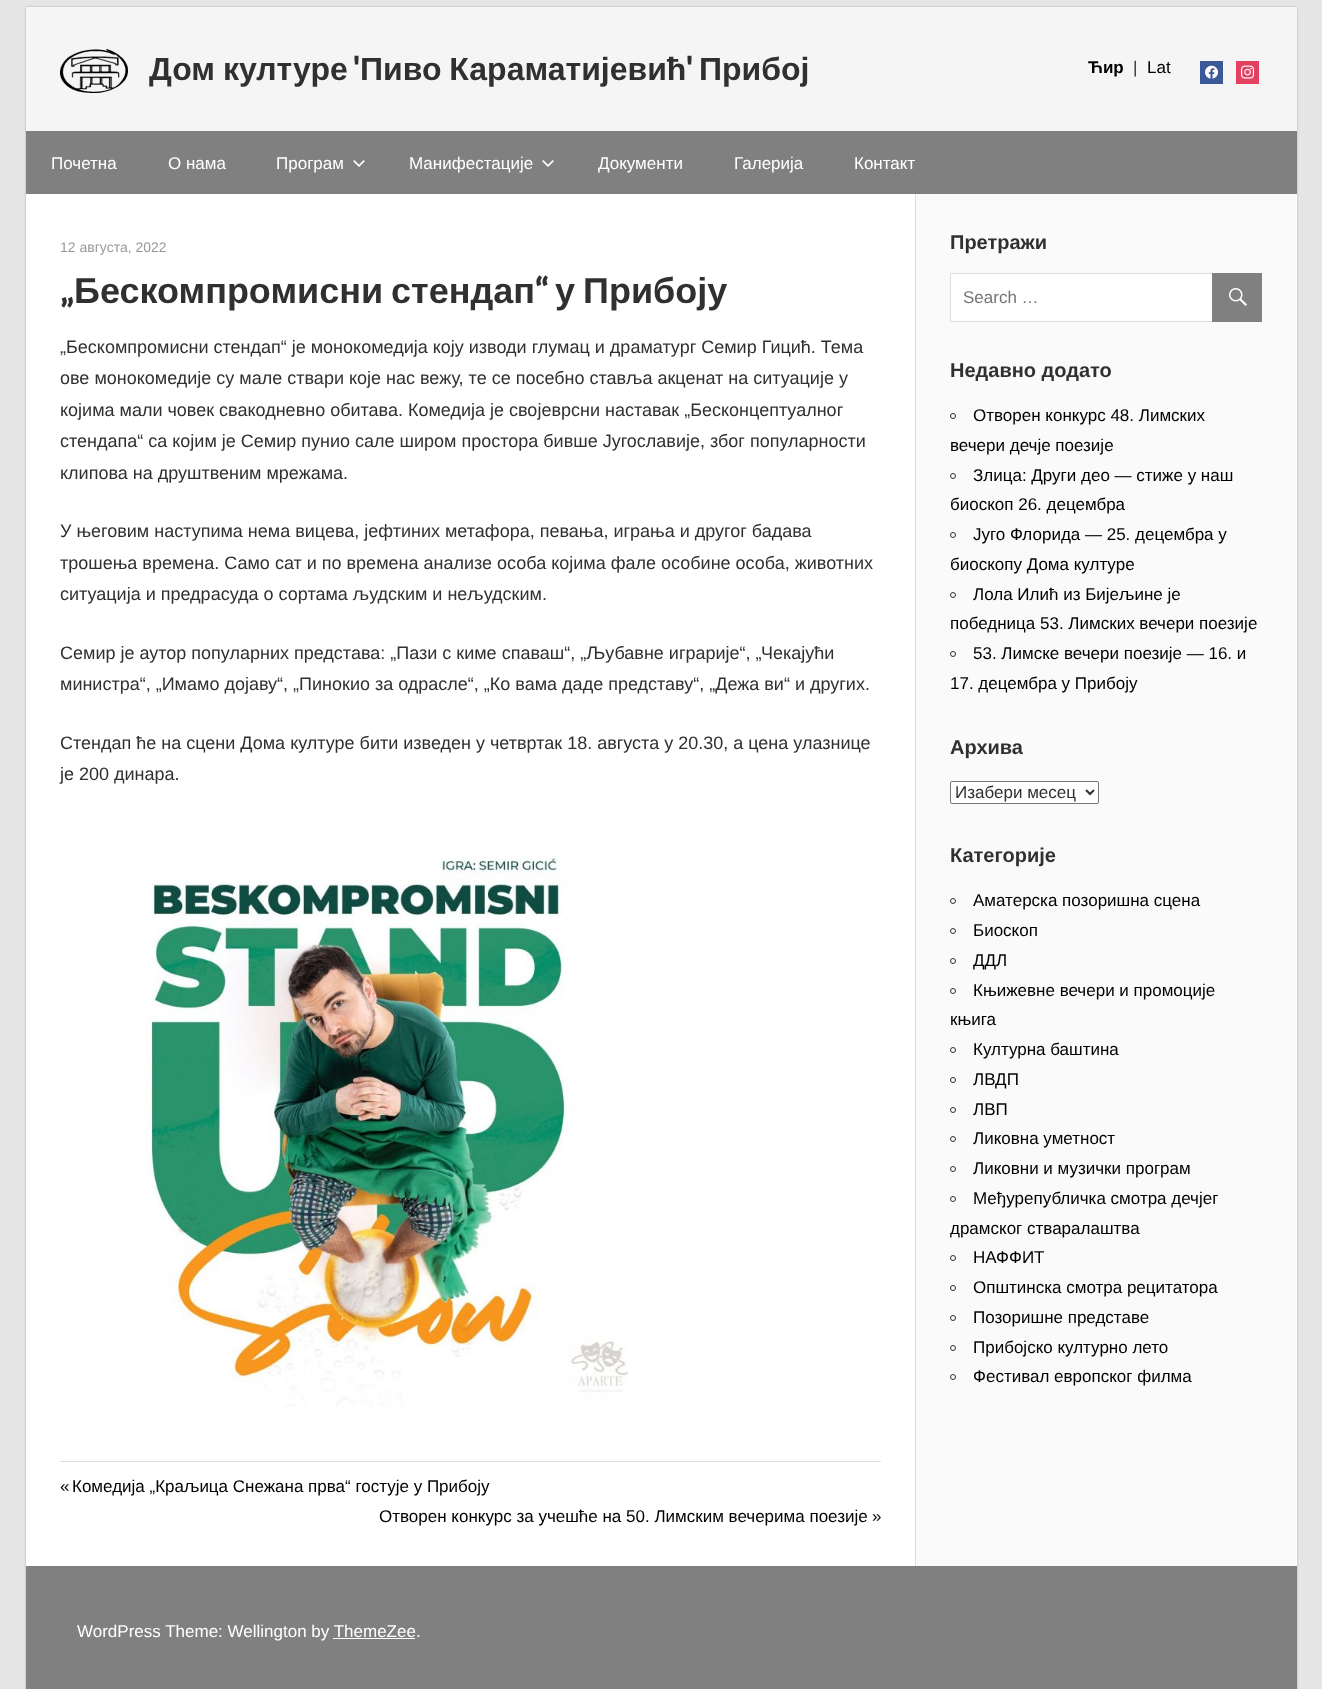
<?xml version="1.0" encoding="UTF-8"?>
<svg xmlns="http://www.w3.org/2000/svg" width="1322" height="1689">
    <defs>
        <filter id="blur1" x="-50%" y="-200%" width="200%" height="500%"><feGaussianBlur stdDeviation="1"/></filter>
    </defs>
    <rect width="100%" height="100%" fill="#E5E5E5"/>
    <rect x="26" y="7" width="1271" height="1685" fill="#AAAAAA" filter="url(#blur1)"/>
    <rect x="26" y="194" width="1271" height="1372" fill="#FFFFFF"/>
    <rect x="26" y="7" width="1271" height="124" fill="#F5F5F5"/>
    <image x="60" y="49" width="68" height="44" href="img_01.png"/>
    <text x="149" y="80" word-spacing="-1" font-family="Liberation Sans" font-size="32" font-weight="700" fill="#303030">Дом културе</text>
    <text x="353" y="80" font-family="Magra" font-size="32" font-weight="700" fill="#303030">'</text>
    <text x="360" y="80" word-spacing="-1" font-family="Liberation Sans" font-size="32" font-weight="700" fill="#303030">Пиво Караматијевић</text>
    <text x="686" y="80" font-family="Magra" font-size="32" font-weight="700" fill="#303030">'</text>
    <text x="699" y="80" font-family="Liberation Sans" font-size="32" font-weight="700" fill="#303030">Прибој</text>
    <text x="1088" y="73" font-family="Liberation Sans" font-size="17" font-weight="700" fill="#000000">Ћир</text>
    <text x="1133" y="73" font-family="Liberation Sans" font-size="17" fill="#303030">|</text>
    <text x="1147" y="73" font-family="Liberation Sans" font-size="17" fill="#000000">Lat</text>
    <rect x="1200" y="61" width="23" height="23" fill="#3B5998"/>
    <image x="1205" y="65" width="13" height="14" href="img_02.png"/>
    <rect x="1236" y="61" width="23" height="23" fill="#E4405F"/>
    <image x="1241" y="65" width="13" height="14" href="img_03.png"/>
    <rect x="26" y="131" width="1271" height="63" fill="#808080"/>
    <text x="51" y="169" font-family="Liberation Sans" font-size="17" fill="#FFFFFF">Почетна</text>
    <text x="168" y="169" font-family="Liberation Sans" font-size="17" fill="#FFFFFF">О нама</text>
    <text x="276" y="169" font-family="Liberation Sans" font-size="17" fill="#FFFFFF">Програм</text>
    <image x="353" y="160" width="12" height="7" href="img_04.png"/>
    <text x="409" y="169" font-family="Liberation Sans" font-size="17" fill="#FFFFFF">Манифестације</text>
    <image x="542" y="160" width="12" height="7" href="img_04.png"/>
    <text x="598" y="169" font-family="Liberation Sans" font-size="17" fill="#FFFFFF">Документи</text>
    <text x="734" y="169" font-family="Liberation Sans" font-size="17" fill="#FFFFFF">Галерија</text>
    <text x="854" y="169" font-family="Liberation Sans" font-size="17" fill="#FFFFFF">Контакт</text>
    <text x="60" y="252" font-family="Liberation Sans" font-size="14" fill="#999999">12 августа, 2022</text>
    <text x="60" y="303" font-family="Magra" font-size="36" font-weight="700" fill="#303030">„</text>
    <text x="74" y="303" word-spacing="-2" font-family="Liberation Sans" font-size="36" font-weight="700" fill="#303030">Бескомпромисни стендап</text>
    <text x="535" y="303" font-family="Magra" font-size="36" font-weight="700" fill="#303030">“</text>
    <text x="555" y="303" word-spacing="-2" font-family="Liberation Sans" font-size="36" font-weight="700" fill="#303030">у Прибоју</text>
    <text font-family="Liberation Sans" font-size="18" fill="#303030">
        <tspan x="60" y="353">„Бескомпромисни стендап“ је монокомедија коју изводи глумац и драматург Семир Гицић. Тема</tspan>
        <tspan x="60" y="384">ове монокомедије су мале ствари које нас вежу, те се посебно ставља акценат на ситуације у</tspan>
        <tspan x="60" y="416">којима мали човек свакодневно обитава. Комедија је својеврсни наставак „Бесконцептуалног</tspan>
        <tspan x="60" y="447">стендапа“ са којим је Семир пунио сале широм простора бивше Југославије, због популарности</tspan>
        <tspan x="60" y="479">клипова на друштвеним мрежама.</tspan>
    </text>
    <text font-family="Liberation Sans" font-size="18" fill="#303030">
        <tspan x="60" y="537">У његовим наступима нема вицева, јефтиних метафора, певања, играња и другог бадава</tspan>
        <tspan x="60" y="569">трошења времена. Само сат и по времена анализе особа којима фале особине особа, животних</tspan>
        <tspan x="60" y="600">ситуација и предрасуда о сортама људским и нељудским.</tspan>
    </text>
    <text font-family="Liberation Sans" font-size="18" fill="#303030">
        <tspan x="60" y="659">Семир је аутор популарних представа: „Пази с киме спаваш“, „Љубавне играрије“, „Чекајући</tspan>
        <tspan x="60" y="690">министра“, „Имамо дојаву“, „Пинокио за одрасле“, „Ко вама даде представу“, „Дежа ви“ и других.</tspan>
    </text>
    <text font-family="Liberation Sans" font-size="18" fill="#303030">
        <tspan x="60" y="749">Стендап ће на сцени Дома културе бити изведен у четвртак 18. августа у 20.30, а цена улазнице</tspan>
        <tspan x="60" y="780">је 200 динара.</tspan>
    </text>
    <image x="146" y="855" width="483" height="552" href="img_05.png"/>
    <rect x="60" y="1461" width="821" height="1" fill="#DDDDDD"/>
    <text x="60" y="1492" font-family="Liberation Sans" font-size="17" fill="#000000">«</text>
    <text x="72" y="1492" font-family="Liberation Sans" font-size="17" fill="#000000">Комедија „Краљица Снежана прва“ гостује у Прибоју</text>
    <text x="379" y="1522" font-family="Liberation Sans" font-size="17" fill="#000000">Отворен конкурс за учешће на 50. Лимским вечерима поезије</text>
    <text x="872" y="1522" font-family="Liberation Sans" font-size="17" fill="#000000">»</text>
    <rect x="916" y="194" width="380" height="1372" fill="#FAFAFA"/>
    <rect x="915" y="194" width="1" height="1372" fill="#DDDDDD"/>
    <text x="950" y="249" font-family="Liberation Sans" font-size="20" font-weight="700" fill="#303030">Претражи</text>
    <rect x="951" y="274" width="261" height="47" fill="#FFFFFF"/>
    <rect x="950.5" y="273.5" width="311" height="48" fill="none" stroke="#DDDDDD"/>
    <text x="963" y="303" font-family="Liberation Sans" font-size="17" fill="#757575">Search …</text>
    <rect x="1212" y="273" width="50" height="49" fill="#808080"/>
    <image x="1229" y="288" width="18" height="18" href="img_06.png"/>
    <text x="950" y="377" font-family="Liberation Sans" font-size="20" font-weight="700" fill="#303030">Недавно додато</text>
    <circle cx="953" cy="416" r="2.5" fill="none" stroke="#303030"/>
    <text x="973" y="421" font-family="Liberation Sans" font-size="17" fill="#000000">Отворен конкурс 48. Лимских</text>
    <text x="950" y="451" font-family="Liberation Sans" font-size="17" fill="#000000">вечери дечје поезије</text>
    <circle cx="953" cy="476" r="2.5" fill="none" stroke="#303030"/>
    <text x="973" y="481" font-family="Liberation Sans" font-size="17" fill="#000000">Злица: Други део — стиже у наш</text>
    <text x="950" y="510" font-family="Liberation Sans" font-size="17" fill="#000000">биоскоп 26. децембра</text>
    <circle cx="953" cy="535" r="2.5" fill="none" stroke="#303030"/>
    <text x="973" y="540" font-family="Liberation Sans" font-size="17" fill="#000000">Југо Флорида — 25. децембра у</text>
    <text x="950" y="570" font-family="Liberation Sans" font-size="17" fill="#000000">биоскопу Дома културе</text>
    <circle cx="953" cy="595" r="2.5" fill="none" stroke="#303030"/>
    <text x="973" y="600" font-family="Liberation Sans" font-size="17" fill="#000000">Лола Илић из Бијељине је</text>
    <text x="950" y="629" font-family="Liberation Sans" font-size="17" fill="#000000">победница 53. Лимских вечери поезије</text>
    <circle cx="953" cy="654" r="2.5" fill="none" stroke="#303030"/>
    <text x="973" y="659" font-family="Liberation Sans" font-size="17" fill="#000000">53. Лимске вечери поезије — 16. и</text>
    <text x="950" y="689" font-family="Liberation Sans" font-size="17" fill="#000000">17. децембра у Прибоју</text>
    <text x="950" y="754" font-family="Liberation Sans" font-size="20" font-weight="700" fill="#303030">Архива</text>
    <rect x="950.5" y="781.5" width="148" height="22" rx="1.5" fill="#FFFFFF" stroke="#767676"/>
    <path d="M 1086 790 L 1090 794 L 1094 790" fill="none" stroke="#303030" stroke-width="2"/>
    <text x="955" y="798" font-family="Liberation Sans" font-size="17" fill="#303030">Изабери месец</text>
    <text x="950" y="862" font-family="Liberation Sans" font-size="20" font-weight="700" fill="#303030">Категорије</text>
    <circle cx="953" cy="901" r="2.5" fill="none" stroke="#303030"/>
    <text x="973" y="906" font-family="Liberation Sans" font-size="17" fill="#000000">Аматерска позоришна сцена</text>
    <circle cx="953" cy="931" r="2.5" fill="none" stroke="#303030"/>
    <text x="973" y="936" font-family="Liberation Sans" font-size="17" fill="#000000">Биоскоп</text>
    <circle cx="953" cy="961" r="2.5" fill="none" stroke="#303030"/>
    <text x="973" y="966" font-family="Liberation Sans" font-size="17" fill="#000000">ДДЛ</text>
    <circle cx="953" cy="991" r="2.5" fill="none" stroke="#303030"/>
    <text x="973" y="996" font-family="Liberation Sans" font-size="17" fill="#000000">Књижевне вечери и промоције</text>
    <text x="950" y="1025" font-family="Liberation Sans" font-size="17" fill="#000000">књига</text>
    <circle cx="953" cy="1050" r="2.5" fill="none" stroke="#303030"/>
    <text x="973" y="1055" font-family="Liberation Sans" font-size="17" fill="#000000">Културна баштина</text>
    <circle cx="953" cy="1080" r="2.5" fill="none" stroke="#303030"/>
    <text x="973" y="1085" font-family="Liberation Sans" font-size="17" fill="#000000">ЛВДП</text>
    <circle cx="953" cy="1110" r="2.5" fill="none" stroke="#303030"/>
    <text x="973" y="1115" font-family="Liberation Sans" font-size="17" fill="#000000">ЛВП</text>
    <circle cx="953" cy="1139" r="2.5" fill="none" stroke="#303030"/>
    <text x="973" y="1144" font-family="Liberation Sans" font-size="17" fill="#000000">Ликовна уметност</text>
    <circle cx="953" cy="1169" r="2.5" fill="none" stroke="#303030"/>
    <text x="973" y="1174" font-family="Liberation Sans" font-size="17" fill="#000000">Ликовни и музички програм</text>
    <circle cx="953" cy="1199" r="2.5" fill="none" stroke="#303030"/>
    <text x="973" y="1204" font-family="Liberation Sans" font-size="17" fill="#000000">Међурепубличка смотра дечјег</text>
    <text x="950" y="1234" font-family="Liberation Sans" font-size="17" fill="#000000">драмског стваралаштва</text>
    <circle cx="953" cy="1258" r="2.5" fill="none" stroke="#303030"/>
    <text x="973" y="1263" font-family="Liberation Sans" font-size="17" fill="#000000">НАФФИТ</text>
    <circle cx="953" cy="1288" r="2.5" fill="none" stroke="#303030"/>
    <text x="973" y="1293" font-family="Liberation Sans" font-size="17" fill="#000000">Општинска смотра рецитатора</text>
    <circle cx="953" cy="1318" r="2.5" fill="none" stroke="#303030"/>
    <text x="973" y="1323" font-family="Liberation Sans" font-size="17" fill="#000000">Позоришне представе</text>
    <circle cx="953" cy="1348" r="2.5" fill="none" stroke="#303030"/>
    <text x="973" y="1353" font-family="Liberation Sans" font-size="17" fill="#000000">Прибојско културно лето</text>
    <circle cx="953" cy="1377" r="2.5" fill="none" stroke="#303030"/>
    <text x="973" y="1382" font-family="Liberation Sans" font-size="17" fill="#000000">Фестивал европског филма</text>
    <rect x="26" y="1566" width="1271" height="123" fill="#808080"/>
    <text x="77" y="1637" font-family="Liberation Sans" font-size="17" fill="#FFFFFF">WordPress Theme: Wellington by ThemeZee.</text>
    <rect x="333" y="1638" width="82" height="1" fill="#FFFFFF"/>
</svg>
